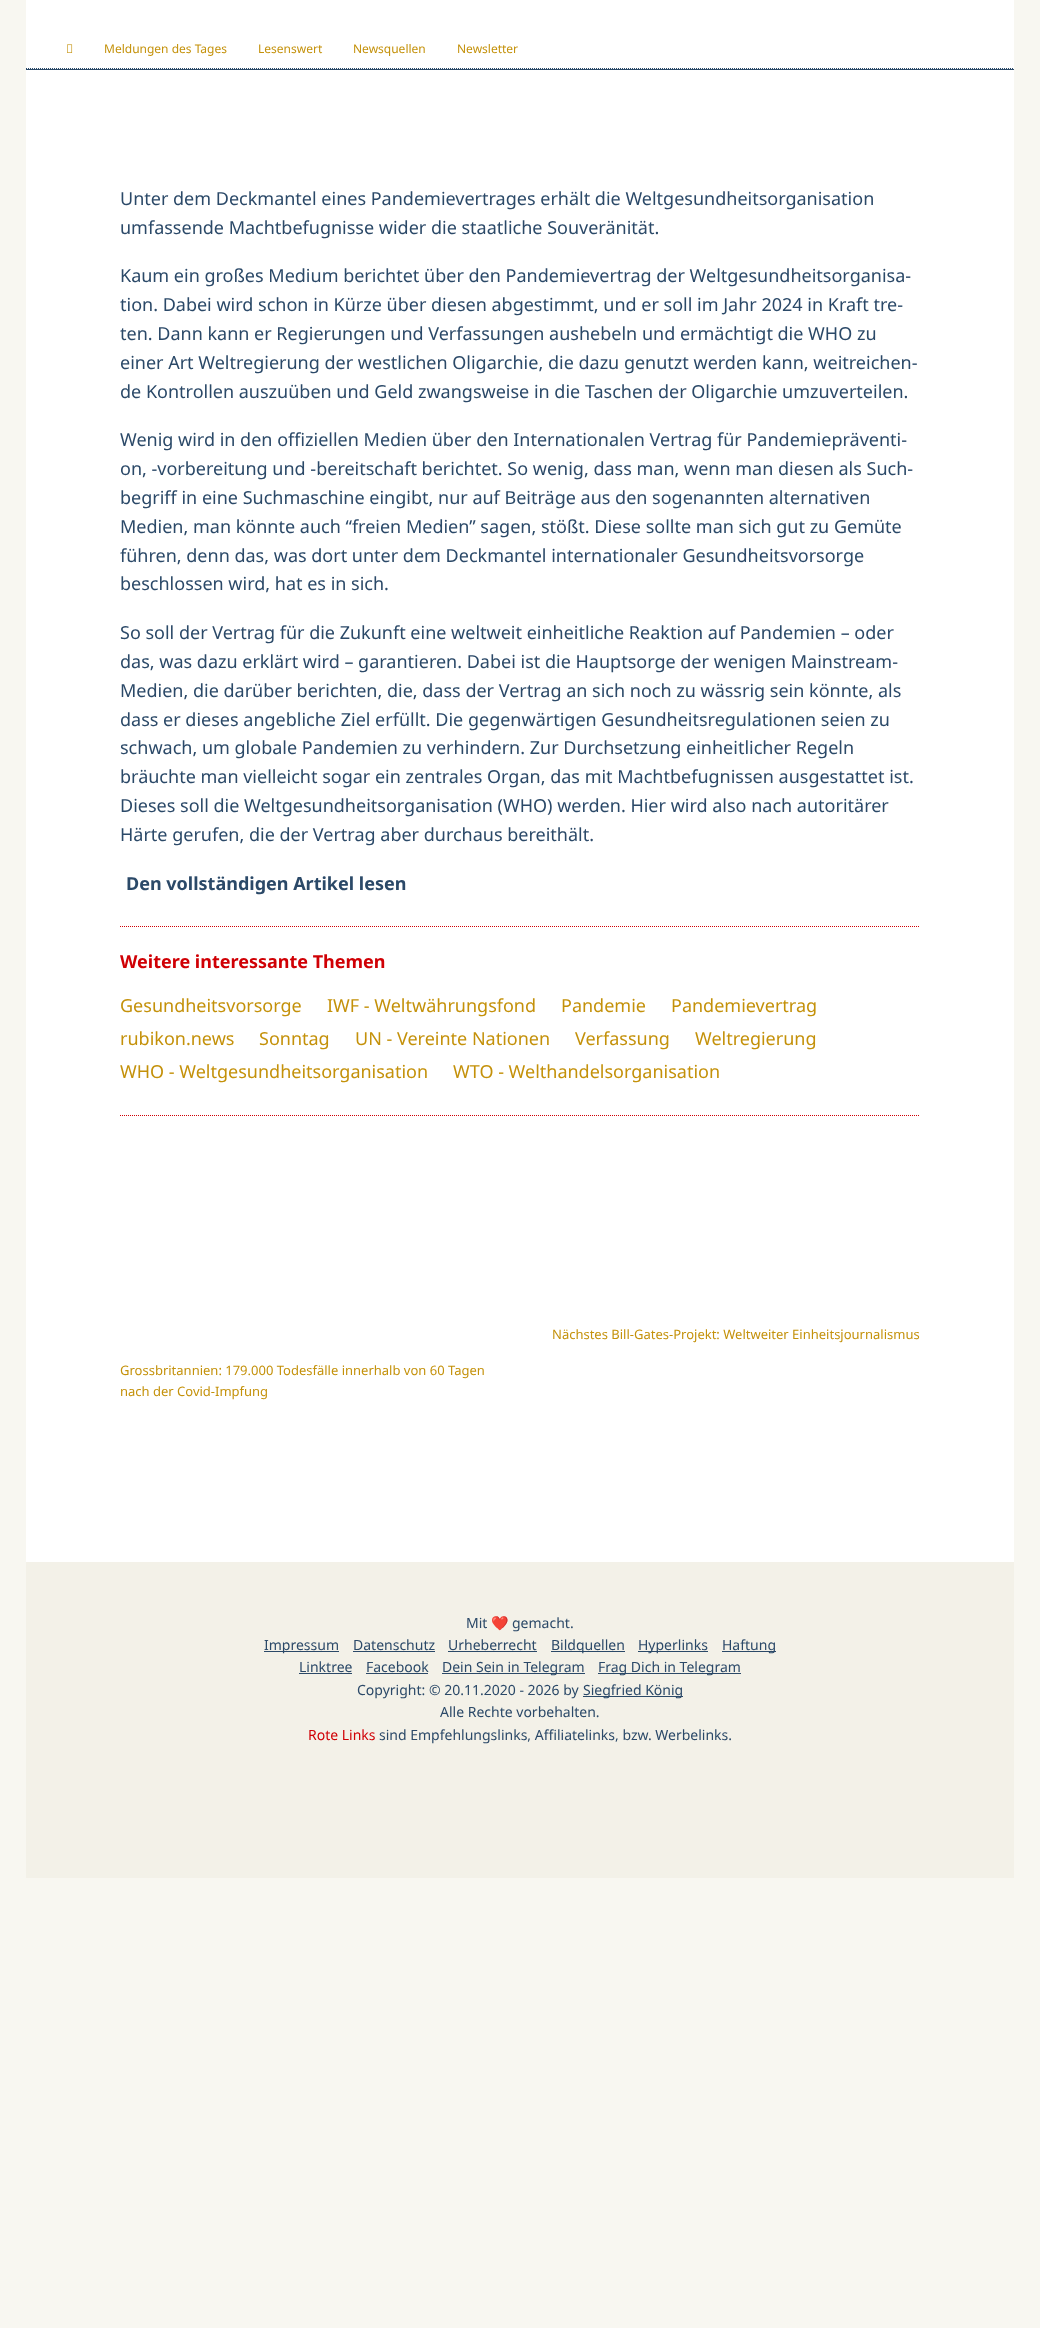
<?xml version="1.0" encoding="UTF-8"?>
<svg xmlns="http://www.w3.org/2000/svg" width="1040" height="2328">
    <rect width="100%" height="100%" fill="#F8F7F1"/>
    <rect x="26" y="0" width="988" height="1562" fill="#FFFFFF"/>
    <rect x="26" y="69" width="988" height="1" fill="#2B4968"/>
    <path d="M 26 68.5 H 1014" fill="none" stroke="#2B4968" stroke-dasharray="1 1"/>
    <image x="67" y="44" width="6" height="9" href="img_01.png"/>
    <text x="104" y="53" font-family="Noto Sans" font-size="12" fill="#C4910A">Meldungen des Tages</text>
    <text x="258" y="53" font-family="Noto Sans" font-size="12" fill="#C4910A">Lesenswert</text>
    <text x="353" y="53" font-family="Noto Sans" font-size="12" fill="#C4910A">Newsquellen</text>
    <text x="457" y="53" font-family="Noto Sans" font-size="12" fill="#C4910A">Newsletter</text>
    <text font-family="Noto Sans" font-size="18" fill="#2B4968">
        <tspan x="120" y="205">Unter dem Deckmantel eines Pandemievertrages erhält die Weltgesundheitsorganisation</tspan>
        <tspan x="120" y="234">umfassende Machtbefugnisse wider die staatliche Souveränität.</tspan>
    </text>
    <text font-family="Noto Sans" font-size="18" fill="#2B4968">
        <tspan x="120" y="282">Kaum ein großes Medium berichtet über den Pandemievertrag der Weltgesundheitsorganisa-</tspan>
        <tspan x="120" y="311">tion. Dabei wird schon in Kürze über diesen abgestimmt, und er soll im Jahr 2024 in Kraft tre-</tspan>
        <tspan x="120" y="340">ten. Dann kann er Regierungen und Verfassungen aushebeln und ermächtigt die WHO zu</tspan>
        <tspan x="120" y="369">einer Art Weltregierung der westlichen Oligarchie, die dazu genutzt werden kann, weitreichen-</tspan>
        <tspan x="120" y="398">de Kontrollen auszuüben und Geld zwangsweise in die Taschen der Oligarchie umzuverteilen.</tspan>
    </text>
    <text font-family="Noto Sans" font-size="18" fill="#2B4968">
        <tspan x="120" y="446">Wenig wird in den offiziellen Medien über den Internationalen Vertrag für Pandemiepräventi-</tspan>
        <tspan x="120" y="475">on, ‑vorbereitung und ‑bereitschaft berichtet. So wenig, dass man, wenn man diesen als Such-</tspan>
        <tspan x="120" y="504">begriff in eine Suchmaschine eingibt, nur auf Beiträge aus den sogenannten alternativen</tspan>
        <tspan x="120" y="533">Medien, man könnte auch “freien Medien” sagen, stößt. Diese sollte man sich gut zu Gemüte</tspan>
        <tspan x="120" y="562">führen, denn das, was dort unter dem Deckmantel internationaler Gesundheitsvorsorge</tspan>
        <tspan x="120" y="590">beschlossen wird, hat es in sich.</tspan>
    </text>
    <text font-family="Noto Sans" font-size="18" fill="#2B4968">
        <tspan x="120" y="639">So soll der Vertrag für die Zukunft eine weltweit einheitliche Reaktion auf Pandemien – oder</tspan>
        <tspan x="120" y="668">das, was dazu erklärt wird – garantieren. Dabei ist die Hauptsorge der wenigen Mainstream-</tspan>
        <tspan x="120" y="697">Medien, die darüber berichten, die, dass der Vertrag an sich noch zu wässrig sein könnte, als</tspan>
        <tspan x="120" y="726">dass er dieses angebliche Ziel erfüllt. Die gegenwärtigen Gesundheitsregulationen seien zu</tspan>
        <tspan x="120" y="754">schwach, um globale Pandemien zu verhindern. Zur Durchsetzung einheitlicher Regeln</tspan>
        <tspan x="120" y="783">bräuchte man vielleicht sogar ein zentrales Organ, das mit Machtbefugnissen ausgestattet ist.</tspan>
        <tspan x="120" y="812">Dieses soll die Weltgesundheitsorganisation (WHO) werden. Hier wird also nach autoritärer</tspan>
        <tspan x="120" y="841">Härte gerufen, die der Vertrag aber durchaus bereithält.</tspan>
    </text>
    <text x="126" y="890" font-family="Noto Sans" font-size="18" font-weight="700" fill="#2B4968">Den vollständigen Artikel lesen</text>
    <path d="M 120 926.5 H 920" fill="none" stroke="#D00005" stroke-dasharray="1 1"/>
    <text x="120" y="968" font-family="Noto Sans" font-size="18" font-weight="700" fill="#D00005">Weitere interessante Themen</text>
    <text x="120" y="1012" font-family="Noto Sans" font-size="18" fill="#C4910A">Gesundheitsvorsorge</text>
    <text x="327" y="1012" font-family="Noto Sans" font-size="18" fill="#C4910A">IWF - Weltwährungsfond</text>
    <text x="561" y="1012" font-family="Noto Sans" font-size="18" fill="#C4910A">Pandemie</text>
    <text x="671" y="1012" font-family="Noto Sans" font-size="18" fill="#C4910A">Pandemievertrag</text>
    <text x="120" y="1045" font-family="Noto Sans" font-size="18" fill="#C4910A">rubikon.news</text>
    <text x="259" y="1045" font-family="Noto Sans" font-size="18" fill="#C4910A">Sonntag</text>
    <text x="355" y="1045" font-family="Noto Sans" font-size="18" fill="#C4910A">UN - Vereinte Nationen</text>
    <text x="575" y="1045" font-family="Noto Sans" font-size="18" fill="#C4910A">Verfassung</text>
    <text x="695" y="1045" font-family="Noto Sans" font-size="18" fill="#C4910A">Weltregierung</text>
    <text x="120" y="1078" font-family="Noto Sans" font-size="18" fill="#C4910A">WHO - Weltgesundheitsorganisation</text>
    <text x="453" y="1078" font-family="Noto Sans" font-size="18" fill="#C4910A">WTO - Welthandelsorganisation</text>
    <path d="M 120 1115.5 H 920" fill="none" stroke="#D00005" stroke-dasharray="1 1"/>
    <text x="552" y="1339" font-family="Noto Sans" font-size="13" fill="#C4910A">Nächstes Bill-Gates-Projekt: Weltweiter Einheitsjournalismus</text>
    <text font-family="Noto Sans" font-size="13" fill="#C4910A">
        <tspan x="120" y="1375">Grossbritannien: 179.000 Todesfälle innerhalb von 60 Tagen</tspan>
        <tspan x="120" y="1396">nach der Covid-Impfung</tspan>
    </text>
    <rect x="26" y="1562" width="988" height="316" fill="#F3F1E8"/>
    <text x="466" y="1628" font-family="Noto Sans" font-size="14" fill="#2B4968">Mit</text>
    <text x="491" y="1628" font-family="Noto Color Emoji" font-size="14" fill="#2B4968">❤️</text>
    <text x="512" y="1628" font-family="Noto Sans" font-size="14" fill="#2B4968">gemacht.</text>
    <rect x="264" y="1651" width="75" height="1" fill="#2B4968"/>
    <text x="264" y="1650" font-family="Noto Sans" font-size="14" fill="#2B4968">Impressum</text>
    <text x="353" y="1650" font-family="Noto Sans" font-size="14" fill="#2B4968">Datenschutz</text>
    <rect x="353" y="1651" width="82" height="1" fill="#2B4968"/>
    <text x="448" y="1650" font-family="Noto Sans" font-size="14" fill="#2B4968">Urheberrecht</text>
    <rect x="448" y="1651" width="89" height="1" fill="#2B4968"/>
    <rect x="551" y="1651" width="74" height="1" fill="#2B4968"/>
    <text x="551" y="1650" font-family="Noto Sans" font-size="14" fill="#2B4968">Bildquellen</text>
    <rect x="638" y="1651" width="70" height="1" fill="#2B4968"/>
    <text x="638" y="1650" font-family="Noto Sans" font-size="14" fill="#2B4968">Hyperlinks</text>
    <rect x="722" y="1651" width="54" height="1" fill="#2B4968"/>
    <text x="722" y="1650" font-family="Noto Sans" font-size="14" fill="#2B4968">Haftung</text>
    <text x="299" y="1672" font-family="Noto Sans" font-size="14" fill="#2B4968">Linktree</text>
    <rect x="299" y="1673" width="53" height="1" fill="#2B4968"/>
    <text x="366" y="1672" font-family="Noto Sans" font-size="14" fill="#2B4968">Facebook</text>
    <rect x="366" y="1673" width="62" height="1" fill="#2B4968"/>
    <rect x="442" y="1673" width="143" height="1" fill="#2B4968"/>
    <text x="442" y="1672" font-family="Noto Sans" font-size="14" fill="#2B4968">Dein Sein in Telegram</text>
    <rect x="598" y="1673" width="143" height="1" fill="#2B4968"/>
    <text x="598" y="1672" font-family="Noto Sans" font-size="14" fill="#2B4968">Frag Dich in Telegram</text>
    <text x="357" y="1695" font-family="Noto Sans" font-size="14" fill="#2B4968">Copyright: © 20.11.2020 - 2026 by</text>
    <rect x="583" y="1696" width="100" height="1" fill="#2B4968"/>
    <text x="583" y="1695" font-family="Noto Sans" font-size="14" fill="#2B4968">Siegfried König</text>
    <text x="440" y="1717" font-family="Noto Sans" font-size="14" fill="#2B4968">Alle Rechte vorbehalten.</text>
    <text x="308" y="1740" font-family="Noto Sans" font-size="14" fill="#D00005">Rote Links</text>
    <text x="379" y="1740" font-family="Noto Sans" font-size="14" fill="#2B4968">sind Empfehlungslinks, Affiliatelinks, bzw. Werbelinks.</text>
</svg>
